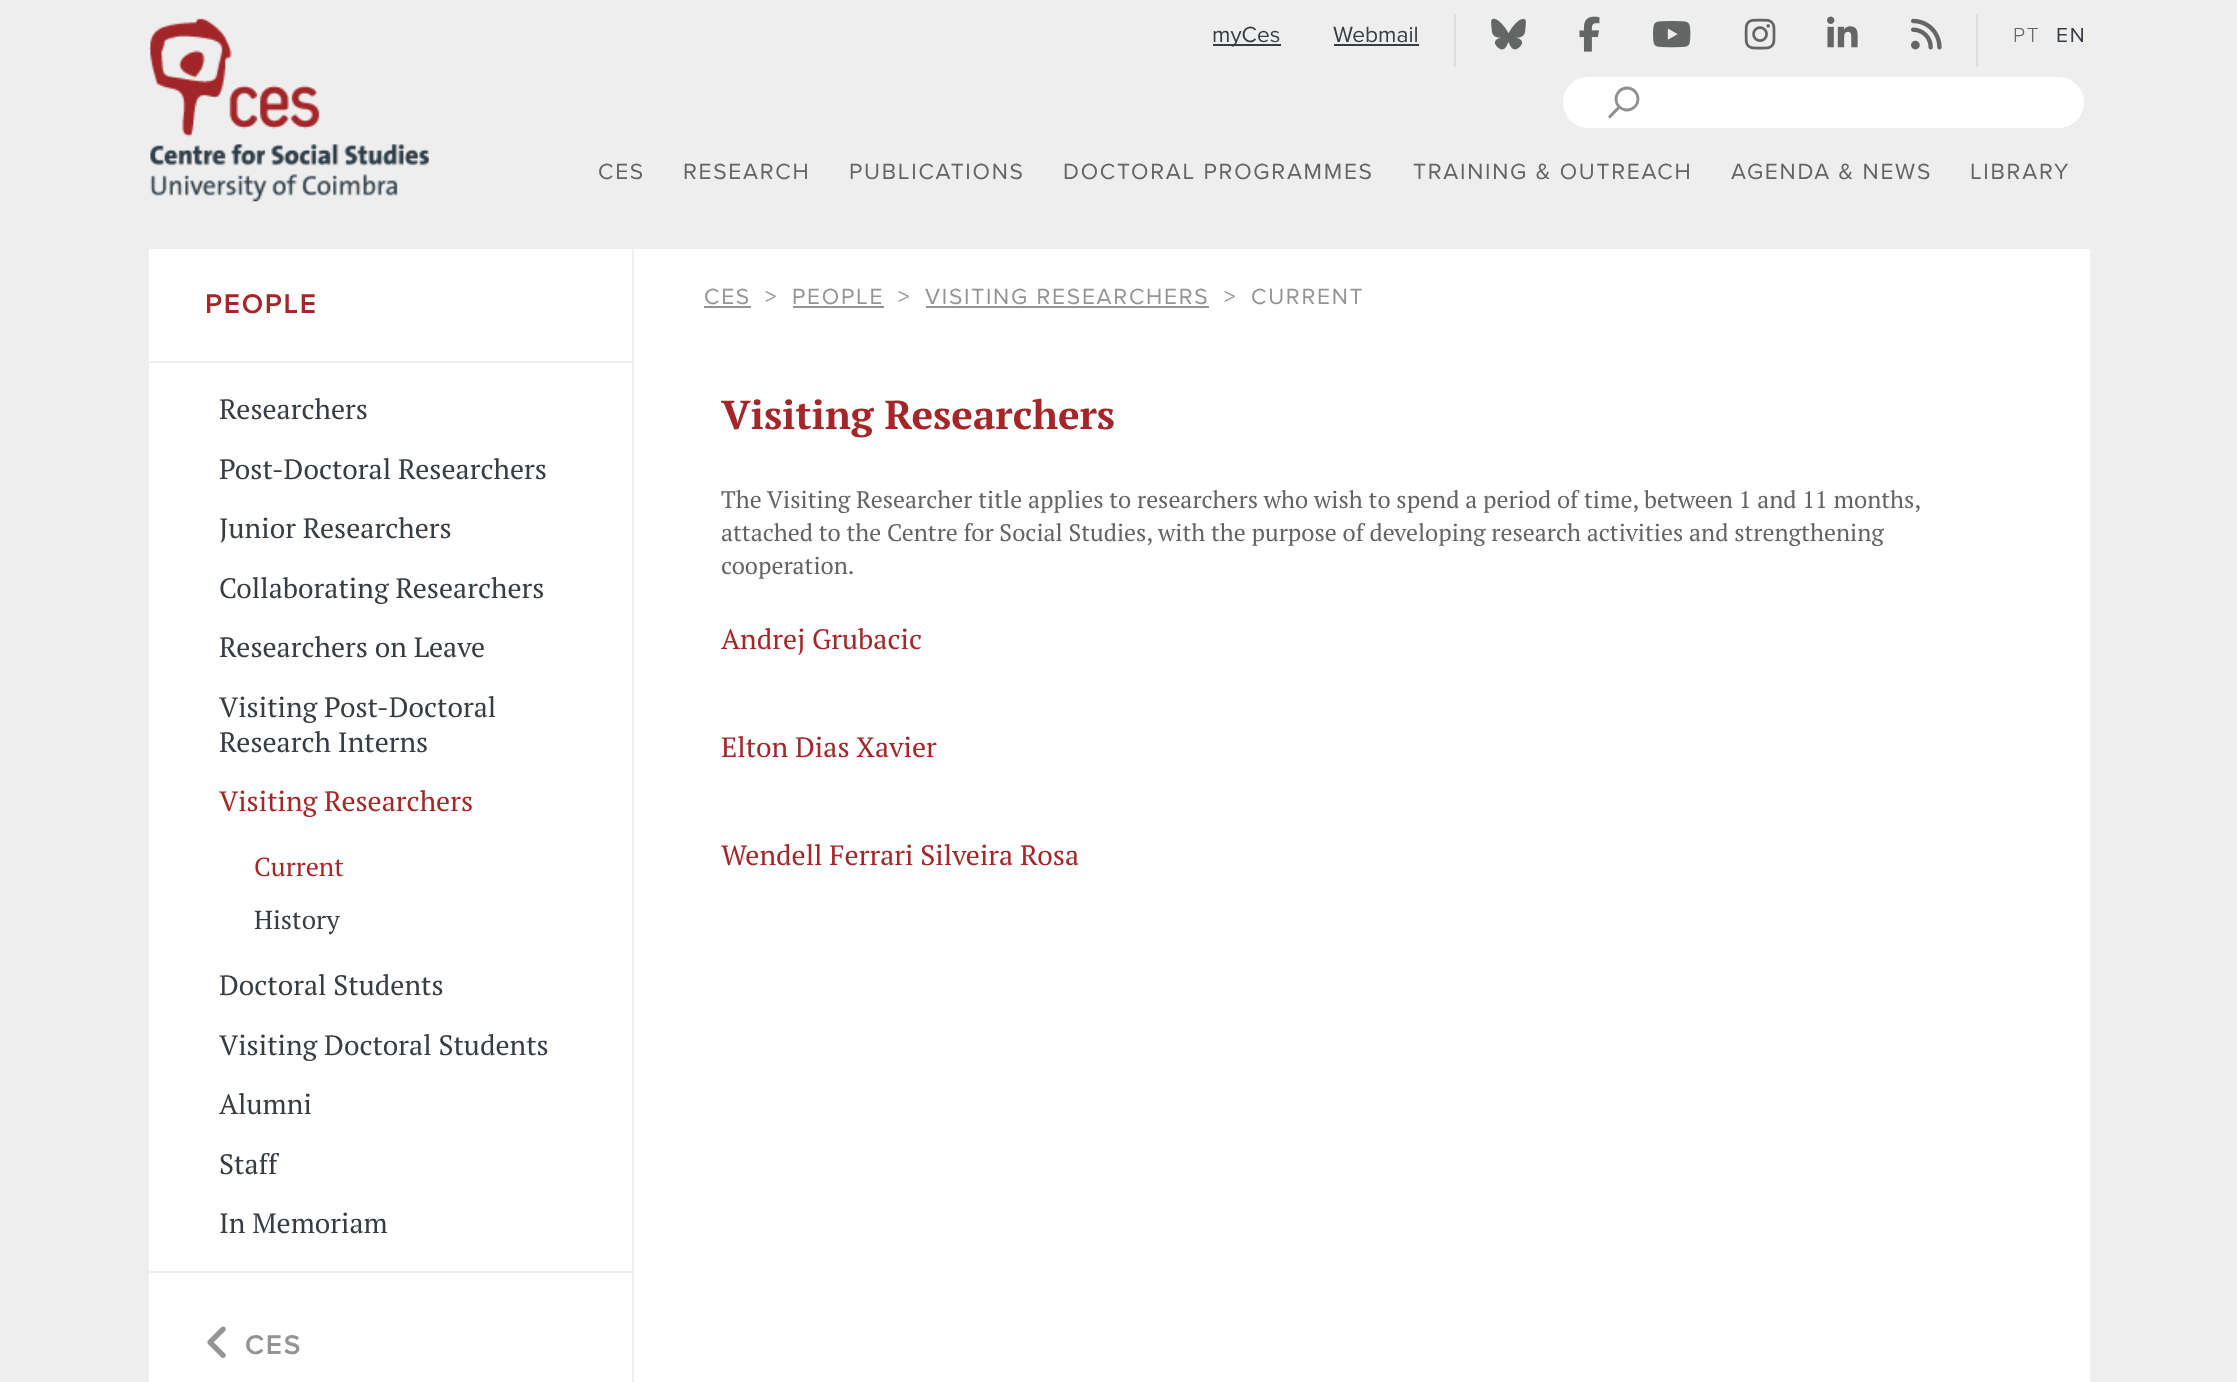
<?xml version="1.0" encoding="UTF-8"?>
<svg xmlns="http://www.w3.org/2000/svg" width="2237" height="1382">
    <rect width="100%" height="100%" fill="#EEEEEE"/>
    <image x="148" y="18" width="281" height="184" href="img_01.png"/>
    <rect x="1213" y="44" width="68" height="2" fill="#383D42"/>
    <text x="1212" y="42" font-family="Proxima Nova" font-size="22.75" fill="#383D42">myCes</text>
    <text x="1333" y="42" font-family="Proxima Nova" font-size="22.75" fill="#383D42">Webmail</text>
    <rect x="1334" y="44" width="85" height="2" fill="#383D42"/>
    <rect x="1454" y="14" width="2" height="53" fill="#DCDCDC"/>
    <image x="1491" y="18" width="35" height="32" href="img_02.png"/>
    <image x="1579" y="16" width="21" height="36" href="img_03.png"/>
    <image x="1653" y="21" width="38" height="27" href="img_04.png"/>
    <image x="1744" y="18" width="32" height="32" href="img_05.png"/>
    <image x="1827" y="16" width="31" height="32" href="img_06.png"/>
    <image x="1911" y="18" width="31" height="32" href="img_07.png"/>
    <rect x="1976" y="14" width="2" height="53" fill="#DCDCDC"/>
    <text x="2013" y="42" font-family="Proxima Nova" font-size="21" font-weight="300" letter-spacing="1.75" fill="#646464">PT</text>
    <text x="2056" y="42" font-family="Proxima Nova" font-size="21" letter-spacing="1.75" fill="#383D42">EN</text>
    <rect x="1562" y="76" width="523" height="53" rx="26.5" fill="#FFFFFF" stroke="#EEEEEE" stroke-width="2"/>
    <path d="M 1610 116.5 L 1628.5 97.5" fill="none" stroke="#919191" stroke-width="3.2" stroke-linecap="round" stroke-linejoin="round"/>
    <path d="M 1638 99 C 1638 113.5 1616 113.5 1616 99 C 1616 85 1638 85 1638 99" fill="#FFFFFF"/>
    <circle cx="1627" cy="99" r="11" fill="none" stroke="#919191" stroke-width="2.8"/>
    <text x="598" y="179" font-family="Proxima Nova" font-size="22.75" letter-spacing="1.75" fill="#646464">CES</text>
    <text x="683" y="179" font-family="Proxima Nova" font-size="22.75" letter-spacing="1.75" fill="#646464">RESEARCH</text>
    <text x="849" y="179" font-family="Proxima Nova" font-size="22.75" letter-spacing="1.75" fill="#646464">PUBLICATIONS</text>
    <text x="1063" y="179" font-family="Proxima Nova" font-size="22.75" letter-spacing="1.75" fill="#646464">DOCTORAL PROGRAMMES</text>
    <text x="1413" y="179" font-family="Proxima Nova" font-size="22.75" letter-spacing="1.75" fill="#646464">TRAINING &amp; OUTREACH</text>
    <text x="1731" y="179" font-family="Proxima Nova" font-size="22.75" letter-spacing="1.75" fill="#646464">AGENDA &amp; NEWS</text>
    <text x="1970" y="179" font-family="Proxima Nova" font-size="22.75" letter-spacing="1.75" fill="#646464">LIBRARY</text>
    <rect x="149" y="249" width="1941" height="1133" fill="#FFFFFF"/>
    <rect x="632" y="249" width="2" height="1133" fill="#EEEEEE"/>
    <rect x="149" y="361" width="483" height="2" fill="#EEEEEE"/>
    <text x="205" y="313" font-family="Proxima Nova" font-size="28" font-weight="600" letter-spacing="1.75" fill="#A42628">PEOPLE</text>
    <rect x="149" y="1271" width="483" height="2" fill="#EEEEEE"/>
    <text x="219" y="419" font-family="PT Serif" font-size="28" fill="#383D42">Researchers</text>
    <text x="219" y="479" font-family="PT Serif" font-size="28" fill="#383D42">Post-Doctoral Researchers</text>
    <text x="219" y="538" font-family="PT Serif" font-size="28" fill="#383D42">Junior Researchers</text>
    <text x="219" y="598" font-family="PT Serif" font-size="28" fill="#383D42">Collaborating Researchers</text>
    <text x="219" y="657" font-family="PT Serif" font-size="28" fill="#383D42">Researchers on Leave</text>
    <text font-family="PT Serif" font-size="28" fill="#383D42">
        <tspan x="219" y="717">Visiting Post-Doctoral</tspan>
        <tspan x="219" y="752">Research Interns</tspan>
    </text>
    <text x="219" y="811" font-family="PT Serif" font-size="28" fill="#A42628">Visiting Researchers</text>
    <text x="254" y="876" font-family="PT Serif" font-size="26" fill="#A42628">Current</text>
    <text x="254" y="929" font-family="PT Serif" font-size="26" fill="#383D42">History</text>
    <text x="219" y="995" font-family="PT Serif" font-size="28" fill="#383D42">Doctoral Students</text>
    <text x="219" y="1055" font-family="PT Serif" font-size="28" fill="#383D42">Visiting Doctoral Students</text>
    <text x="219" y="1114" font-family="PT Serif" font-size="28" fill="#383D42">Alumni</text>
    <text x="219" y="1174" font-family="PT Serif" font-size="28" fill="#383D42">Staff</text>
    <text x="219" y="1233" font-family="PT Serif" font-size="28" fill="#383D42">In Memoriam</text>
    <image x="207" y="1326" width="19" height="32" href="img_08.png"/>
    <text x="245" y="1354" font-family="Proxima Nova" font-size="28" font-weight="600" letter-spacing="1.75" fill="#949494">CES</text>
    <text x="704" y="304" font-family="Proxima Nova" font-size="22.75" letter-spacing="1.75" fill="#949494">CES</text>
    <rect x="704" y="306" width="47" height="2" fill="#949494"/>
    <text x="765" y="304" font-family="Proxima Nova" font-size="22.75" letter-spacing="1.75" fill="#949494">&gt;</text>
    <text x="792" y="304" font-family="Proxima Nova" font-size="22.75" letter-spacing="1.75" fill="#949494">PEOPLE</text>
    <rect x="793" y="306" width="91" height="2" fill="#949494"/>
    <text x="898" y="304" font-family="Proxima Nova" font-size="22.75" letter-spacing="1.75" fill="#949494">&gt;</text>
    <text x="925" y="304" font-family="Proxima Nova" font-size="22.75" letter-spacing="1.75" fill="#949494">VISITING RESEARCHERS</text>
    <rect x="926" y="306" width="283" height="2" fill="#949494"/>
    <text x="1224" y="304" font-family="Proxima Nova" font-size="22.75" letter-spacing="1.75" fill="#949494">&gt;</text>
    <text x="1251" y="304" font-family="Proxima Nova" font-size="22.75" letter-spacing="1.75" fill="#949494">CURRENT</text>
    <text x="721" y="429" font-family="PT Serif" font-size="40.25" font-weight="700" fill="#A42628">Visiting Researchers</text>
    <text font-family="PT Serif" font-size="23.8" fill="#646464">
        <tspan x="721" y="508">The Visiting Researcher title applies to researchers who wish to spend a period of time, between 1 and 11 months,</tspan>
        <tspan x="721" y="541">attached to the Centre for Social Studies, with the purpose of developing research activities and strengthening</tspan>
        <tspan x="721" y="574">cooperation.</tspan>
    </text>
    <text x="721" y="649" font-family="PT Serif" font-size="28" fill="#A42628">Andrej Grubacic</text>
    <text x="721" y="757" font-family="PT Serif" font-size="28" fill="#A42628">Elton Dias Xavier</text>
    <text x="721" y="865" font-family="PT Serif" font-size="28" fill="#A42628">Wendell Ferrari Silveira Rosa</text>
</svg>
